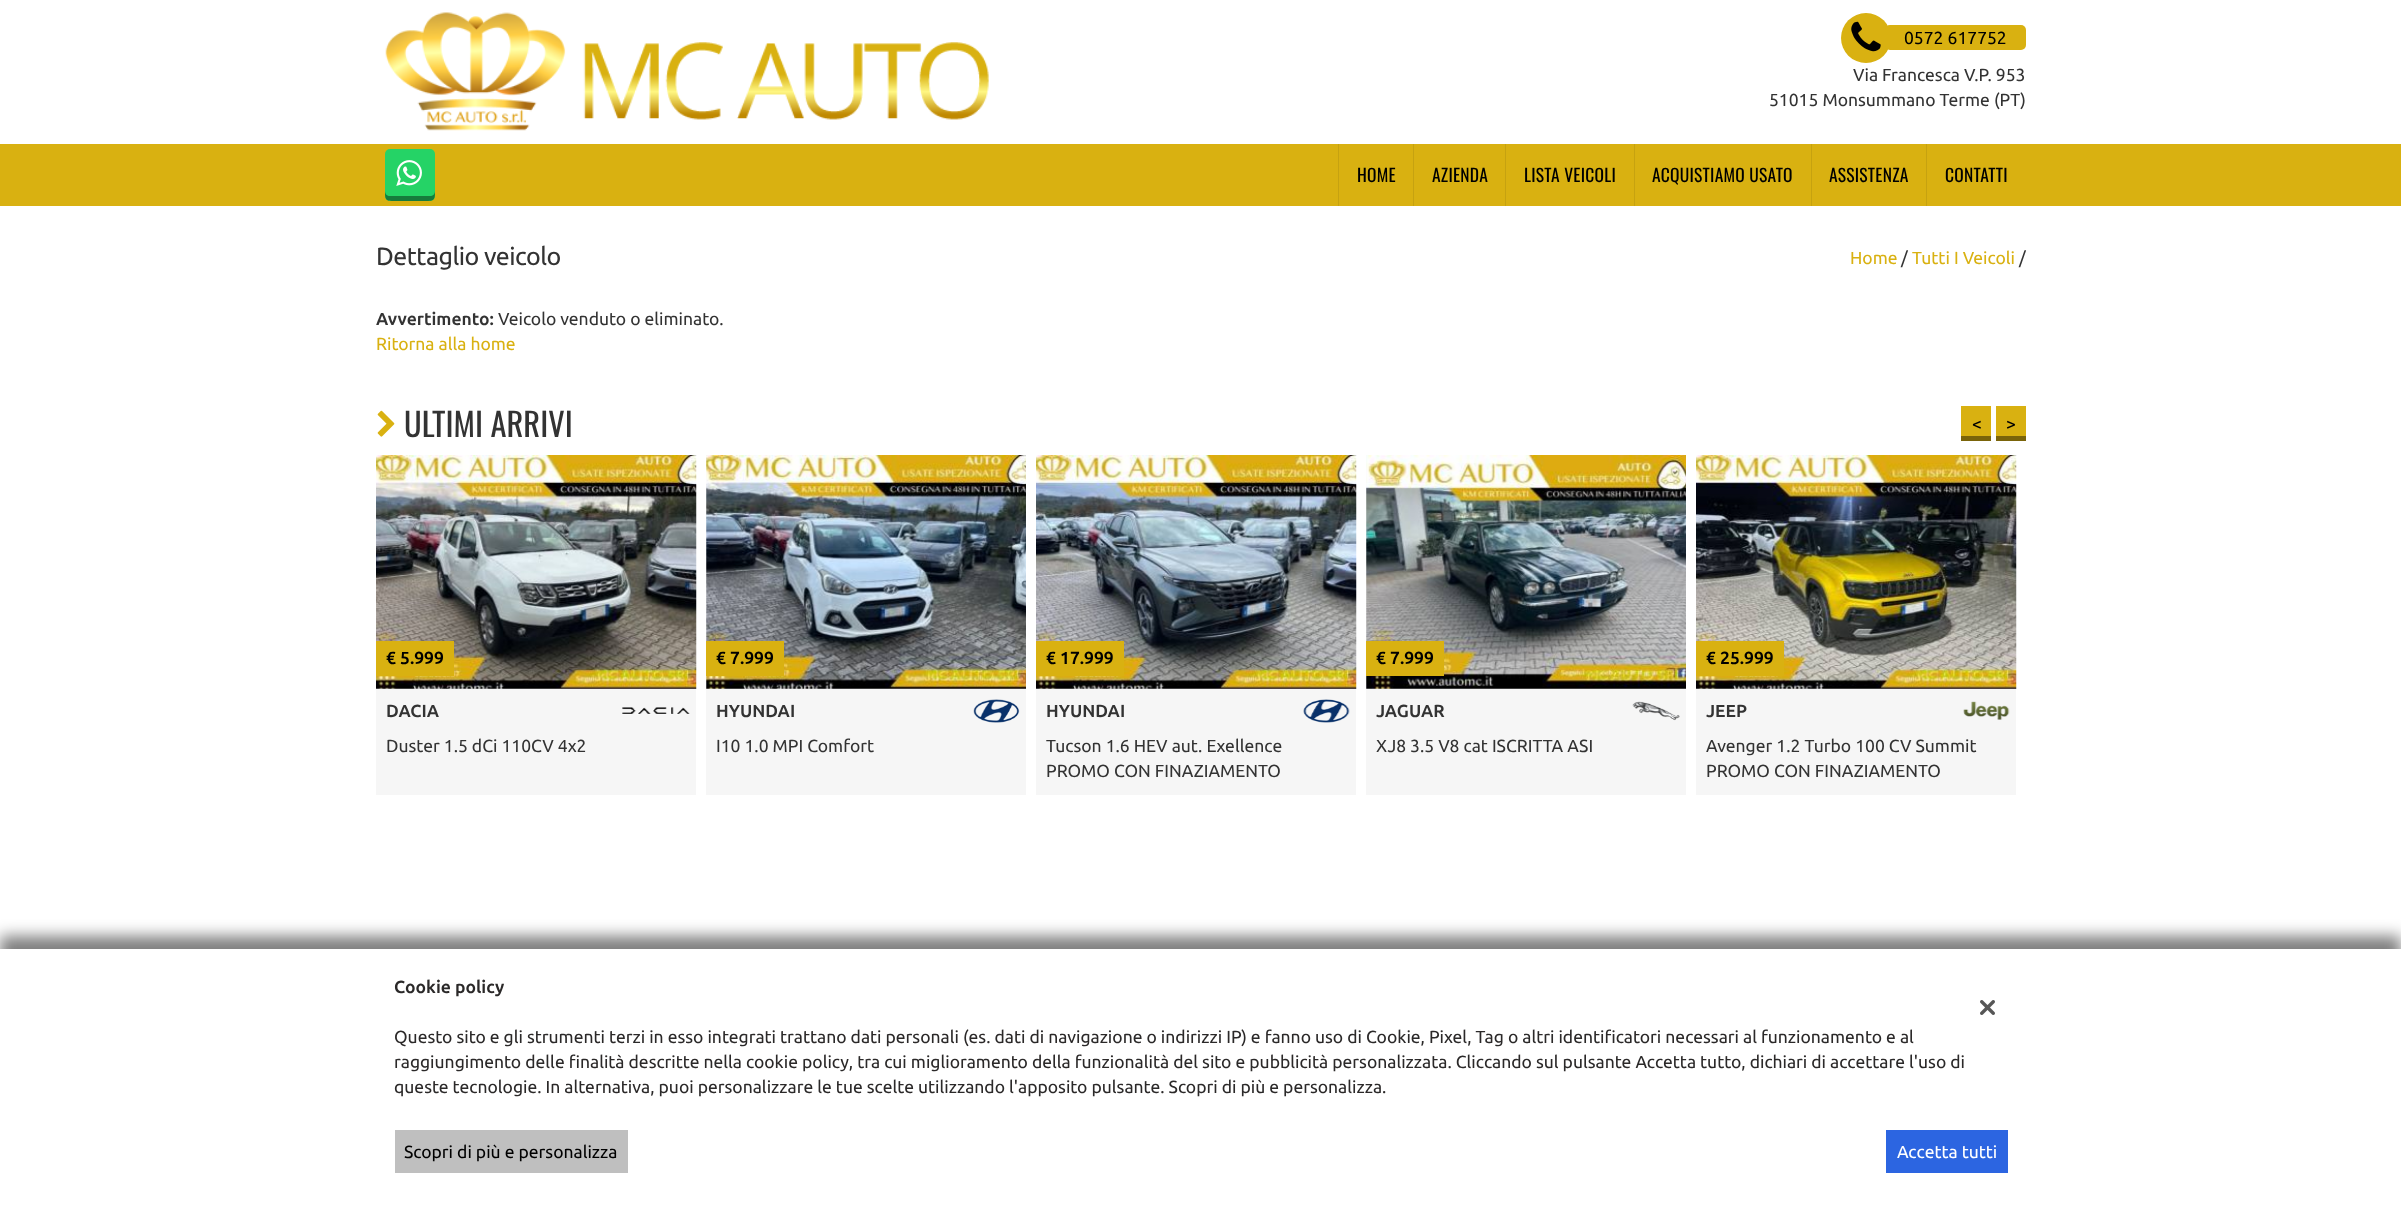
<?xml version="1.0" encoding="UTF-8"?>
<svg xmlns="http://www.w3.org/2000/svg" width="2401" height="1210">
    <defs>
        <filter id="blur1" x="-50%" y="-200%" width="200%" height="500%"><feGaussianBlur stdDeviation="7.5"/></filter>
    </defs>
    <rect width="100%" height="100%" fill="#FFFFFF"/>
    <image x="385" y="12" width="604" height="119" href="img_01.png"/>
    <circle cx="1866" cy="38" r="25" fill="#D9B111"/>
    <image x="1851" y="21" width="30" height="31" href="img_02.png"/>
    <rect x="1885" y="25" width="141" height="25" rx="5" fill="#D9B111"/>
    <text x="1904" y="44" font-family="Ubuntu" font-size="17.5" fill="#000000">0572 617752</text>
    <text x="1853" y="81" font-family="Ubuntu" font-size="17.5" fill="#333333">Via Francesca V.P. 953</text>
    <text x="1769" y="106" font-family="Ubuntu" font-size="17.5" fill="#333333">51015 Monsummano Terme (PT)</text>
    <rect x="0" y="144" width="2401" height="62" fill="#D9B111"/>
    <rect x="385" y="149" width="50" height="52" rx="5" fill="#25D366"/>
    <path d="M 385 191 C 385 201 386 201 397 201 H 423 C 434 201 435 201 435 191 C 435 194 433 196 430 196 H 390 C 387 196 385 194 385 191 Z" fill="#167C3C"/>
    <image x="396" y="160" width="26" height="26" href="img_03.png"/>
    <rect x="1338" y="144" width="1" height="62" fill="#C6A210"/>
    <text x="1357" y="182" font-family="Oswald" font-size="17.5" letter-spacing="0.25" fill="#000000">HOME</text>
    <rect x="1413" y="144" width="1" height="62" fill="#C6A210"/>
    <text x="1432" y="182" font-family="Oswald" font-size="17.5" letter-spacing="0.25" fill="#000000">AZIENDA</text>
    <rect x="1505" y="144" width="1" height="62" fill="#C6A210"/>
    <text x="1524" y="182" font-family="Oswald" font-size="17.5" letter-spacing="0.25" fill="#000000">LISTA VEICOLI</text>
    <rect x="1634" y="144" width="1" height="62" fill="#C6A210"/>
    <text x="1652" y="182" font-family="Oswald" font-size="17.5" letter-spacing="0.25" fill="#000000">ACQUISTIAMO USATO</text>
    <rect x="1811" y="144" width="1" height="62" fill="#C6A210"/>
    <text x="1829" y="182" font-family="Oswald" font-size="17.5" letter-spacing="0.25" fill="#000000">ASSISTENZA</text>
    <rect x="1926" y="144" width="1" height="62" fill="#C6A210"/>
    <text x="1945" y="182" font-family="Oswald" font-size="17.5" letter-spacing="0.25" fill="#000000">CONTATTI</text>
    <text x="376" y="265" font-family="Ubuntu" font-size="25" letter-spacing="-0.5" fill="#333333">Dettaglio veicolo</text>
    <text x="1850" y="264" font-family="Ubuntu" font-size="17.5" fill="#D9B111">Home</text>
    <text x="1901" y="264" font-family="Ubuntu" font-size="17.5" fill="#333333">/</text>
    <text x="1912" y="264" font-family="Ubuntu" font-size="17.5" fill="#D9B111">Tutti I Veicoli</text>
    <text x="2019" y="264" font-family="Ubuntu" font-size="17.5" fill="#333333">/</text>
    <text x="376" y="325" font-family="Ubuntu" font-size="17.5" font-weight="700" fill="#333333">Avvertimento:</text>
    <text x="498" y="325" font-family="Ubuntu" font-size="17.5" fill="#333333">Veicolo venduto o eliminato.</text>
    <text x="376" y="350" font-family="Ubuntu" font-size="17.5" fill="#D9B111">Ritorna alla home</text>
    <image x="377" y="410" width="18" height="27" href="img_04.png"/>
    <text x="404" y="437" font-family="Oswald" font-size="32.5" fill="#333333">ULTIMI ARRIVI</text>
    <rect x="1961" y="406" width="30" height="30" fill="#D9B111"/>
    <rect x="1961" y="436" width="30" height="5" fill="#7A640A"/>
    <text x="1972" y="430" font-family="Ubuntu" font-size="17.5" fill="#000000">&lt;</text>
    <rect x="1996" y="406" width="30" height="30" fill="#D9B111"/>
    <rect x="1996" y="436" width="30" height="5" fill="#7A640A"/>
    <text x="2006" y="430" font-family="Ubuntu" font-size="17.5" fill="#000000">&gt;</text>
    <rect x="376" y="688" width="320" height="107" fill="#F6F6F6"/>
    <image x="376" y="455" width="321" height="234" href="img_05.png"/>
    <rect x="376" y="641" width="78" height="35" fill="#D9B111"/>
    <text x="386" y="664" font-family="Ubuntu" font-size="17.5" font-weight="700" fill="#000000">€ 5.999</text>
    <text x="386" y="717" font-family="Ubuntu" font-size="17.5" font-weight="700" fill="#333333">DACIA</text>
    <image x="622" y="707" width="68" height="8" href="img_06.png"/>
    <text x="386" y="752" font-family="Ubuntu" font-size="17.5" fill="#333333">Duster 1.5 dCi 110CV 4x2</text>
    <rect x="706" y="455" width="320" height="340" fill="#F6F6F6"/>
    <image x="706" y="455" width="320" height="234" href="img_07.png"/>
    <rect x="706" y="641" width="78" height="35" fill="#D9B111"/>
    <text x="716" y="664" font-family="Ubuntu" font-size="17.5" font-weight="700" fill="#000000">€ 7.999</text>
    <text x="716" y="717" font-family="Ubuntu" font-size="17.5" font-weight="700" fill="#333333">HYUNDAI</text>
    <image x="973" y="699" width="47" height="24" href="img_08.png"/>
    <text x="716" y="752" font-family="Ubuntu" font-size="17.5" fill="#333333">I10 1.0 MPI Comfort</text>
    <rect x="1036" y="688" width="320" height="107" fill="#F6F6F6"/>
    <image x="1036" y="455" width="321" height="234" href="img_09.png"/>
    <rect x="1036" y="641" width="88" height="35" fill="#D9B111"/>
    <text x="1046" y="664" font-family="Ubuntu" font-size="17.5" font-weight="700" fill="#000000">€ 17.999</text>
    <text x="1046" y="717" font-family="Ubuntu" font-size="17.5" font-weight="700" fill="#333333">HYUNDAI</text>
    <image x="1303" y="699" width="47" height="24" href="img_10.png"/>
    <text font-family="Ubuntu" font-size="17.5" fill="#333333">
        <tspan x="1046" y="752">Tucson 1.6 HEV aut. Exellence</tspan>
        <tspan x="1046" y="777">PROMO CON FINAZIAMENTO</tspan>
    </text>
    <rect x="1366" y="455" width="320" height="340" fill="#F6F6F6"/>
    <image x="1366" y="455" width="320" height="234" href="img_11.png"/>
    <rect x="1366" y="641" width="78" height="35" fill="#D9B111"/>
    <text x="1376" y="664" font-family="Ubuntu" font-size="17.5" font-weight="700" fill="#000000">€ 7.999</text>
    <text x="1376" y="717" font-family="Ubuntu" font-size="17.5" font-weight="700" fill="#333333">JAGUAR</text>
    <image x="1632" y="701" width="48" height="20" href="img_12.png"/>
    <text x="1376" y="752" font-family="Ubuntu" font-size="17.5" fill="#333333">XJ8 3.5 V8 cat ISCRITTA ASI</text>
    <rect x="1696" y="688" width="320" height="107" fill="#F6F6F6"/>
    <image x="1696" y="455" width="321" height="234" href="img_13.png"/>
    <rect x="1696" y="641" width="88" height="35" fill="#D9B111"/>
    <text x="1706" y="664" font-family="Ubuntu" font-size="17.5" font-weight="700" fill="#000000">€ 25.999</text>
    <text x="1706" y="717" font-family="Ubuntu" font-size="17.5" font-weight="700" fill="#333333">JEEP</text>
    <image x="1963" y="701" width="47" height="19" href="img_14.png"/>
    <text font-family="Ubuntu" font-size="17.5" fill="#333333">
        <tspan x="1706" y="752">Avenger 1.2 Turbo 100 CV Summit</tspan>
        <tspan x="1706" y="777">PROMO CON FINAZIAMENTO</tspan>
    </text>
    <rect x="0" y="936" width="2401" height="262" fill="#000000" fill-opacity="0.5" filter="url(#blur1)"/>
    <rect x="0" y="949" width="2401" height="261" fill="#FFFFFF"/>
    <text x="394" y="993" font-family="Ubuntu" font-size="17.5" font-weight="700" fill="#2B2929">Cookie policy</text>
    <text font-family="Ubuntu" font-size="17.5" fill="#2B2929">
        <tspan x="394" y="1043">Questo sito e gli strumenti terzi in esso integrati trattano dati personali (es. dati di navigazione o indirizzi IP) e fanno uso di Cookie, Pixel, Tag o altri identificatori necessari al funzionamento e al</tspan>
        <tspan x="394" y="1068">raggiungimento delle finalità descritte nella cookie policy, tra cui miglioramento della funzionalità del sito e pubblicità personalizzata. Cliccando sul pulsante Accetta tutto, dichiari di accettare l'uso di</tspan>
        <tspan x="394" y="1093">queste tecnologie. In alternativa, puoi personalizzare le tue scelte utilizzando l'apposito pulsante. Scopri di più e personalizza.</tspan>
    </text>
    <rect x="395" y="1130" width="233" height="43" fill="#BFBFBF"/>
    <text x="404" y="1158" font-family="Ubuntu" font-size="17.5" fill="#000000">Scopri di più e personalizza</text>
    <rect x="1886" y="1130" width="122" height="43" fill="#2C65E1"/>
    <text x="1897" y="1158" font-family="Ubuntu" font-size="17.5" fill="#FFFFFF">Accetta tutti</text>
    <image x="1980" y="1000" width="15" height="15" href="img_15.png"/>
</svg>
